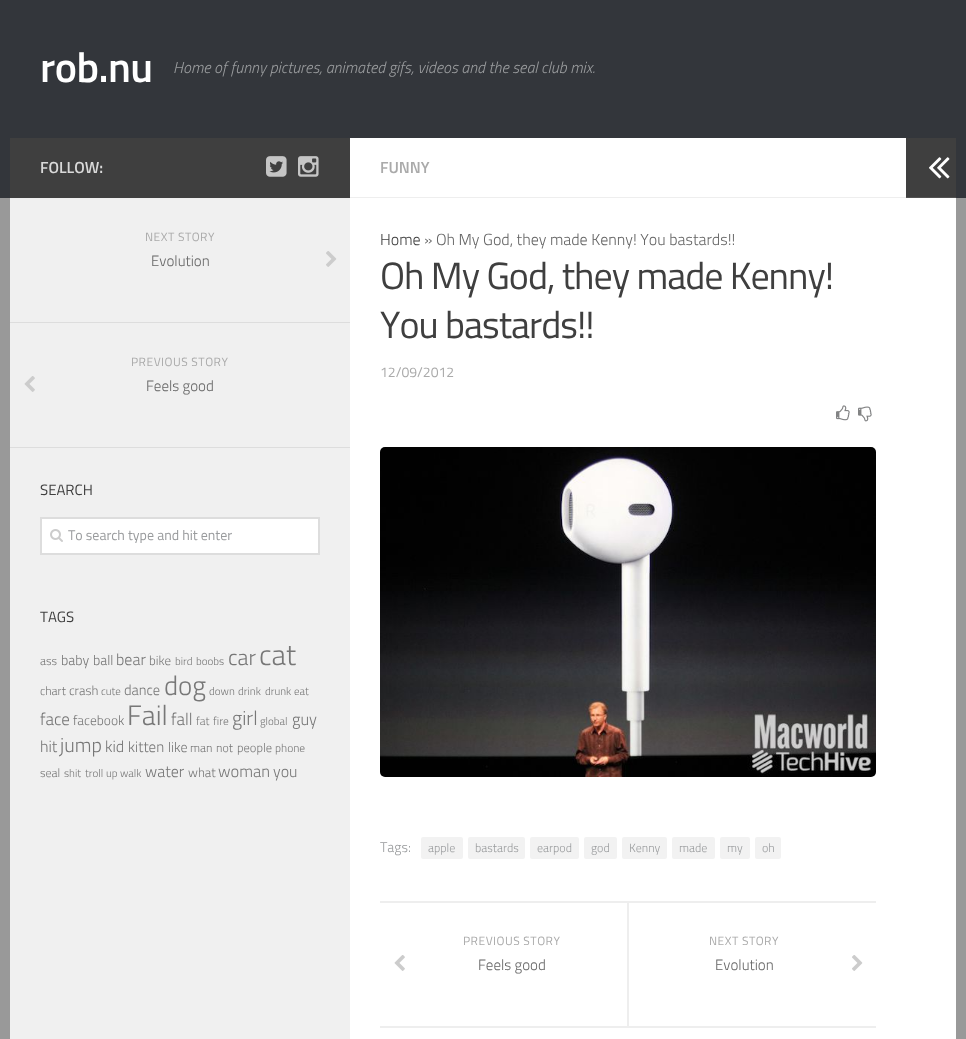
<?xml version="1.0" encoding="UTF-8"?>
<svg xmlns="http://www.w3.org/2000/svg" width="966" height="1039">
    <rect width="100%" height="100%" fill="#999999"/>
    <rect x="0" y="0" width="966" height="198" fill="#33363B"/>
    <text x="40" y="82" font-family="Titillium" font-size="42" font-weight="600" letter-spacing="-0.5" fill="#FFFFFF">rob.nu</text>
    <text x="173" y="73" font-family="Titillium" font-size="16" font-weight="300" font-style="italic" fill="#999B9D">Home of funny pictures, animated gifs, videos and the seal club mix.</text>
    <rect x="350" y="138" width="606" height="901" fill="#FFFFFF"/>
    <rect x="10" y="199" width="340" height="840" fill="#F0F0F0"/>
    <rect x="10" y="138" width="340" height="60" fill="#3F3F3F"/>
    <text x="40" y="173" font-family="Titillium" font-size="16" font-weight="600" fill="#D9D9D9">FOLLOW:</text>
    <image x="266" y="156" width="21" height="21" href="img_01.png"/>
    <image x="298" y="156" width="21" height="21" href="img_02.png"/>
    <rect x="10" y="198" width="340" height="1" fill="#EEEEEE"/>
    <rect x="10" y="322" width="340" height="1" fill="#DDDDDD"/>
    <text x="145" y="241" font-family="Titillium" font-size="12" letter-spacing="0.5" fill="#AAAAAA">NEXT STORY</text>
    <text x="151" y="266" font-family="Titillium" font-size="15" font-weight="300" fill="#666666">Evolution</text>
    <image x="326" y="251" width="11" height="16" href="img_03.png"/>
    <rect x="10" y="447" width="340" height="1" fill="#DDDDDD"/>
    <text x="131" y="366" font-family="Titillium" font-size="12" letter-spacing="0.5" fill="#AAAAAA">PREVIOUS STORY</text>
    <image x="24" y="376" width="11" height="16" href="img_04.png"/>
    <text x="146" y="391" font-family="Titillium" font-size="15" font-weight="300" fill="#666666">Feels good</text>
    <text x="40" y="495" font-family="Titillium" font-size="15" fill="#3F3F3F">SEARCH</text>
    <rect x="41" y="518" width="278" height="36" fill="#FFFFFF" stroke="#DDDDDD" stroke-width="2"/>
    <image x="50" y="529" width="13" height="13" href="img_05.png"/>
    <text x="68" y="540" font-family="Titillium" font-size="14" fill="#999B9D">To search type and hit enter</text>
    <text x="40" y="622" font-family="Titillium" font-size="15" fill="#3F3F3F">TAGS</text>
    <text x="40" y="665" font-family="Titillium" font-size="12" font-weight="300" fill="#777777">ass</text>
    <text x="61" y="665" font-family="Titillium" font-size="14" font-weight="300" fill="#777777">baby</text>
    <text x="93" y="665" font-family="Titillium" font-size="14" font-weight="300" fill="#777777">ball</text>
    <text x="116" y="665" font-family="Titillium" font-size="16" font-weight="300" fill="#777777">bear</text>
    <text x="149" y="665" font-family="Titillium" font-size="13" font-weight="300" fill="#777777">bike</text>
    <text x="175" y="665" font-family="Titillium" font-size="11" font-weight="300" fill="#777777">bird</text>
    <text x="196" y="665" font-family="Titillium" font-size="11" font-weight="300" fill="#777777">boobs</text>
    <text x="228" y="665" font-family="Titillium" font-size="22" font-weight="300" fill="#777777">car</text>
    <text x="259" y="665" font-family="Titillium" font-size="29" font-weight="300" fill="#777777">cat</text>
    <text x="40" y="695" font-family="Titillium" font-size="12" font-weight="300" fill="#777777">chart</text>
    <text x="69" y="695" font-family="Titillium" font-size="13" font-weight="300" fill="#777777">crash</text>
    <text x="101" y="695" font-family="Titillium" font-size="11" font-weight="300" fill="#777777">cute</text>
    <text x="124" y="695" font-family="Titillium" font-size="14.5" font-weight="300" fill="#777777">dance</text>
    <text x="164" y="695" font-family="Titillium" font-size="27" font-weight="300" fill="#777777">dog</text>
    <text x="209" y="695" font-family="Titillium" font-size="11" font-weight="300" fill="#777777">down</text>
    <text x="238" y="695" font-family="Titillium" font-size="11" font-weight="300" fill="#777777">drink</text>
    <text x="265" y="695" font-family="Titillium" font-size="11" font-weight="300" fill="#777777">drunk</text>
    <text x="294" y="695" font-family="Titillium" font-size="11" font-weight="300" fill="#777777">eat</text>
    <text x="40" y="725" font-family="Titillium" font-size="17" font-weight="300" fill="#777777">face</text>
    <text x="73" y="725" font-family="Titillium" font-size="13.5" font-weight="300" fill="#777777">facebook</text>
    <text x="127" y="725" font-family="Titillium" font-size="28" font-weight="300" fill="#777777">Fail</text>
    <text x="171" y="725" font-family="Titillium" font-size="17" font-weight="300" fill="#777777">fall</text>
    <text x="196" y="725" font-family="Titillium" font-size="11.5" font-weight="300" fill="#777777">fat</text>
    <text x="213" y="725" font-family="Titillium" font-size="11.5" font-weight="300" fill="#777777">fire</text>
    <text x="232" y="725" font-family="Titillium" font-size="20" font-weight="300" fill="#777777">girl</text>
    <text x="260" y="725" font-family="Titillium" font-size="11" font-weight="300" fill="#777777">global</text>
    <text x="292" y="725" font-family="Titillium" font-size="16.5" font-weight="300" fill="#777777">guy</text>
    <text x="40" y="752" font-family="Titillium" font-size="16" font-weight="300" fill="#777777">hit</text>
    <text x="60" y="752" font-family="Titillium" font-size="20" font-weight="300" fill="#777777">jump</text>
    <text x="105" y="752" font-family="Titillium" font-size="16" font-weight="300" fill="#777777">kid</text>
    <text x="128" y="752" font-family="Titillium" font-size="15" font-weight="300" fill="#777777">kitten</text>
    <text x="168" y="752" font-family="Titillium" font-size="14" font-weight="300" fill="#777777">like</text>
    <text x="190" y="752" font-family="Titillium" font-size="12" font-weight="300" fill="#777777">man</text>
    <text x="216" y="752" font-family="Titillium" font-size="12" font-weight="300" fill="#777777">not</text>
    <text x="237" y="752" font-family="Titillium" font-size="12.5" font-weight="300" fill="#777777">people</text>
    <text x="275" y="752" font-family="Titillium" font-size="11.5" font-weight="300" fill="#777777">phone</text>
    <text x="40" y="777" font-family="Titillium" font-size="12" font-weight="300" fill="#777777">seal</text>
    <text x="64" y="777" font-family="Titillium" font-size="11" font-weight="300" fill="#777777">shit</text>
    <text x="85" y="777" font-family="Titillium" font-size="11" font-weight="300" fill="#777777">troll</text>
    <text x="106" y="777" font-family="Titillium" font-size="11" font-weight="300" fill="#777777">up</text>
    <text x="120" y="777" font-family="Titillium" font-size="11" font-weight="300" fill="#777777">walk</text>
    <text x="145" y="777" font-family="Titillium" font-size="16" font-weight="300" fill="#777777">water</text>
    <text x="188" y="777" font-family="Titillium" font-size="13" font-weight="300" fill="#777777">what</text>
    <text x="218" y="777" font-family="Titillium" font-size="16.5" font-weight="300" fill="#777777">woman</text>
    <text x="273" y="777" font-family="Titillium" font-size="16" font-weight="300" fill="#777777">you</text>
    <rect x="350" y="197" width="556" height="1" fill="#EEEEEE"/>
    <text x="380" y="173" font-family="Titillium" font-size="16" font-weight="600" fill="#AAAAAA">FUNNY</text>
    <text x="380" y="245" font-family="Titillium" font-size="16" font-weight="300" fill="#3F3F3F">Home</text>
    <text x="424" y="245" font-family="Titillium" font-size="16" font-weight="300" fill="#666666">» Oh My God, they made Kenny! You bastards!!</text>
    <text font-family="Titillium" font-size="38" letter-spacing="-1" fill="#3F3F3F">
        <tspan x="380" y="289">Oh My God, they made Kenny!</tspan>
        <tspan x="380" y="338">You bastards!!</tspan>
    </text>
    <text x="380" y="377" font-family="Titillium" font-size="14" fill="#AAAAAA">12/09/2012</text>
    <image x="836" y="405" width="14" height="16" href="img_06.png"/>
    <image x="858" y="406" width="14" height="16" href="img_07.png"/>
    <image x="380" y="447" width="496" height="330" href="img_08.png"/>
    <text x="380" y="852" font-family="Titillium" font-size="14" font-weight="300" fill="#999B9D">Tags:</text>
    <rect x="421" y="837" width="42" height="22" rx="2" fill="#F2F2F2"/>
    <text x="428" y="852" font-family="Titillium" font-size="12" font-weight="300" fill="#999B9D">apple</text>
    <rect x="468" y="837" width="57" height="22" rx="2" fill="#F2F2F2"/>
    <text x="475" y="852" font-family="Titillium" font-size="12" font-weight="300" fill="#999B9D">bastards</text>
    <rect x="530" y="837" width="49" height="22" rx="2" fill="#F2F2F2"/>
    <text x="537" y="852" font-family="Titillium" font-size="12" font-weight="300" fill="#999B9D">earpod</text>
    <rect x="584" y="837" width="33" height="22" rx="2" fill="#F2F2F2"/>
    <text x="591" y="852" font-family="Titillium" font-size="12" font-weight="300" fill="#999B9D">god</text>
    <rect x="622" y="837" width="45" height="22" rx="2" fill="#F2F2F2"/>
    <text x="629" y="852" font-family="Titillium" font-size="12" font-weight="300" fill="#999B9D">Kenny</text>
    <rect x="672" y="837" width="43" height="22" rx="2" fill="#F2F2F2"/>
    <text x="679" y="852" font-family="Titillium" font-size="12" font-weight="300" fill="#999B9D">made</text>
    <rect x="720" y="837" width="30" height="22" rx="2" fill="#F2F2F2"/>
    <text x="727" y="852" font-family="Titillium" font-size="12" font-weight="300" fill="#999B9D">my</text>
    <rect x="755" y="837" width="26" height="22" rx="2" fill="#F2F2F2"/>
    <text x="762" y="852" font-family="Titillium" font-size="12" font-weight="300" fill="#999B9D">oh</text>
    <rect x="380" y="901" width="496" height="2" fill="#EEEEEE"/>
    <rect x="380" y="1026" width="496" height="2" fill="#EEEEEE"/>
    <text x="463" y="945" font-family="Titillium" font-size="12" letter-spacing="0.5" fill="#AAAAAA">PREVIOUS STORY</text>
    <image x="394" y="955" width="11" height="16" href="img_09.png"/>
    <text x="478" y="970" font-family="Titillium" font-size="15" font-weight="300" fill="#666666">Feels good</text>
    <rect x="627" y="903" width="2" height="123" fill="#EEEEEE"/>
    <text x="709" y="945" font-family="Titillium" font-size="12" letter-spacing="0.5" fill="#AAAAAA">NEXT STORY</text>
    <text x="715" y="970" font-family="Titillium" font-size="15" font-weight="300" fill="#666666">Evolution</text>
    <image x="852" y="955" width="11" height="16" href="img_10.png"/>
    <rect x="906" y="138" width="50" height="59" fill="#3F3F3F"/>
    <rect x="906" y="197" width="50" height="1" fill="#525252"/>
    <image x="929" y="157" width="21" height="22" href="img_11.png"/>
</svg>
